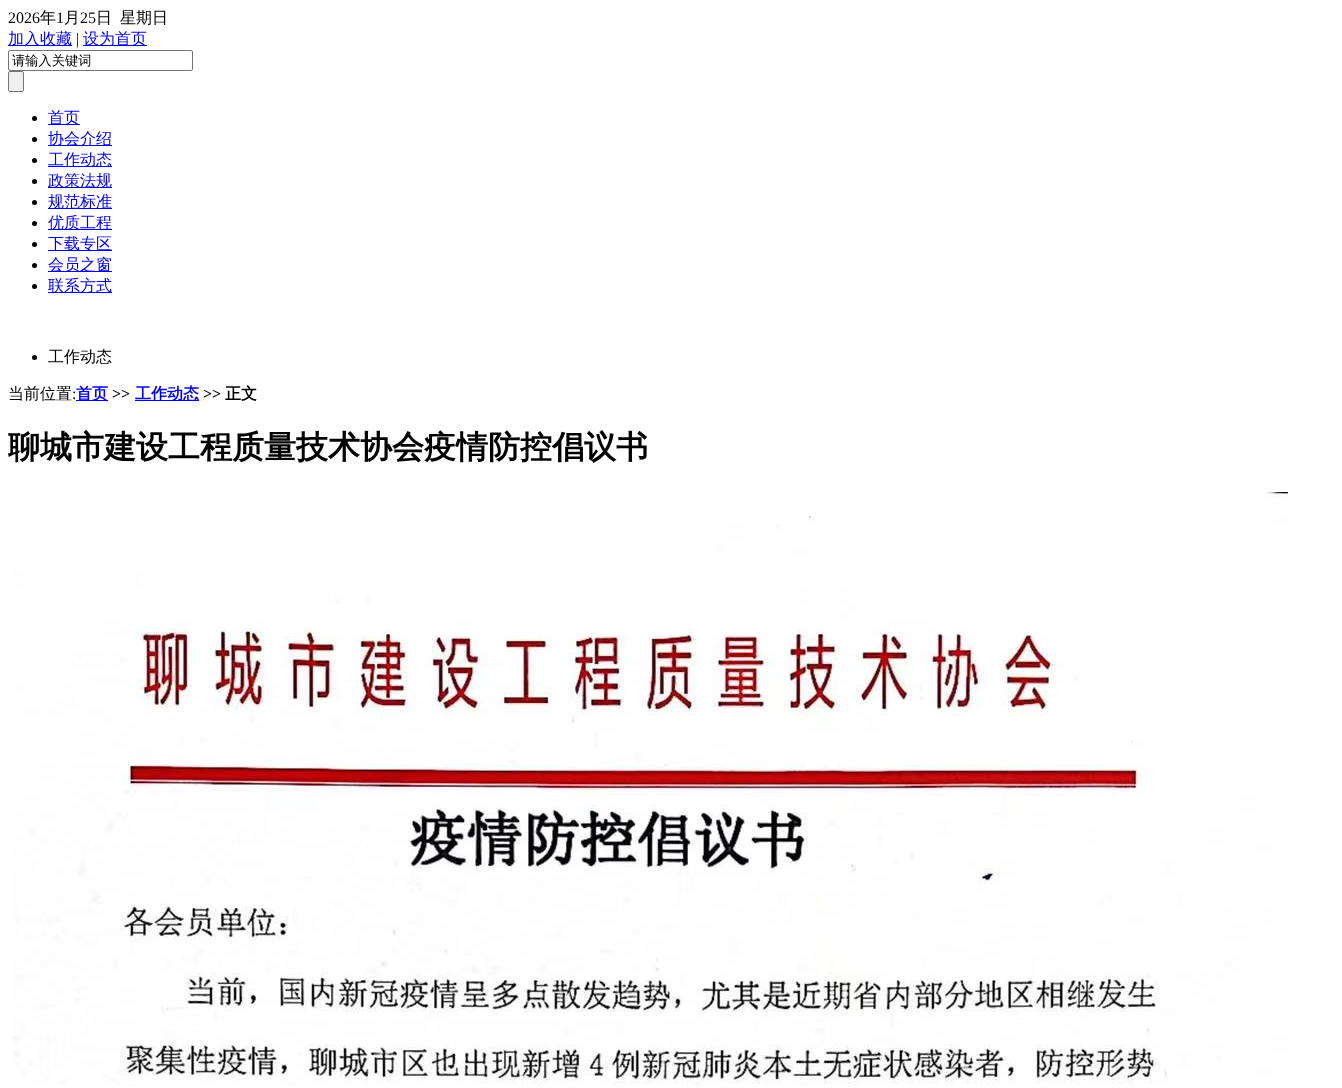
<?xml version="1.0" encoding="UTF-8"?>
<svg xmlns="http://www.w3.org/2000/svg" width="1342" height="1088">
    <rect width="100%" height="100%" fill="#FFFFFF"/>
    <text x="8" y="23" font-family="Liberation Serif" font-size="16" fill="#000000">2026</text>
    <text x="40" y="23" font-family="WenQuanYi Zen Hei" font-size="16" font-weight="500" fill="#000000">年</text>
    <text x="56" y="23" font-family="Liberation Serif" font-size="16" fill="#000000">1</text>
    <text x="64" y="23" font-family="WenQuanYi Zen Hei" font-size="16" font-weight="500" fill="#000000">月</text>
    <text x="80" y="23" font-family="Liberation Serif" font-size="16" fill="#000000">25</text>
    <text x="96" y="23" font-family="WenQuanYi Zen Hei" font-size="16" font-weight="500" fill="#000000">日</text>
    <text x="120" y="23" font-family="WenQuanYi Zen Hei" font-size="16" font-weight="500" fill="#000000">星期日</text>
    <rect x="8" y="45" width="64" height="1" fill="#0000EE"/>
    <text x="8" y="44" font-family="WenQuanYi Zen Hei" font-size="16" font-weight="500" fill="#0000EE">加入收藏</text>
    <text x="76" y="44" font-family="Liberation Serif" font-size="16" fill="#000000">|</text>
    <rect x="83" y="45" width="64" height="1" fill="#0000EE"/>
    <text x="83" y="44" font-family="WenQuanYi Zen Hei" font-size="16" font-weight="500" fill="#0000EE">设为首页</text>
    <rect x="8.5" y="50.5" width="184" height="20" rx="1.5" fill="none" stroke="#767676"/>
    <text x="12" y="65" font-family="WenQuanYi Zen Hei" font-size="13.25" font-weight="500" fill="#000000">请输入关键词</text>
    <rect x="8.5" y="71.5" width="15" height="20" rx="1.5" fill="#EFEFEF" stroke="#767676"/>
    <circle cx="34.5" cy="118.5" r="2.5" fill="#000000"/>
    <rect x="48" y="124" width="32" height="1" fill="#0000EE"/>
    <text x="48" y="123" font-family="WenQuanYi Zen Hei" font-size="16" font-weight="500" fill="#0000EE">首页</text>
    <circle cx="34.5" cy="139.5" r="2.5" fill="#000000"/>
    <rect x="48" y="145" width="64" height="1" fill="#0000EE"/>
    <text x="48" y="144" font-family="WenQuanYi Zen Hei" font-size="16" font-weight="500" fill="#0000EE">协会介绍</text>
    <circle cx="34.5" cy="160.5" r="2.5" fill="#000000"/>
    <rect x="48" y="166" width="64" height="1" fill="#0000EE"/>
    <text x="48" y="165" font-family="WenQuanYi Zen Hei" font-size="16" font-weight="500" fill="#0000EE">工作动态</text>
    <circle cx="34.5" cy="181.5" r="2.5" fill="#000000"/>
    <rect x="48" y="187" width="64" height="1" fill="#0000EE"/>
    <text x="48" y="186" font-family="WenQuanYi Zen Hei" font-size="16" font-weight="500" fill="#0000EE">政策法规</text>
    <circle cx="34.5" cy="202.5" r="2.5" fill="#000000"/>
    <rect x="48" y="208" width="64" height="1" fill="#0000EE"/>
    <text x="48" y="207" font-family="WenQuanYi Zen Hei" font-size="16" font-weight="500" fill="#0000EE">规范标准</text>
    <circle cx="34.5" cy="223.5" r="2.5" fill="#000000"/>
    <rect x="48" y="229" width="64" height="1" fill="#0000EE"/>
    <text x="48" y="228" font-family="WenQuanYi Zen Hei" font-size="16" font-weight="500" fill="#0000EE">优质工程</text>
    <circle cx="34.5" cy="244.5" r="2.5" fill="#000000"/>
    <rect x="48" y="250" width="64" height="1" fill="#0000EE"/>
    <text x="48" y="249" font-family="WenQuanYi Zen Hei" font-size="16" font-weight="500" fill="#0000EE">下载专区</text>
    <circle cx="34.5" cy="265.5" r="2.5" fill="#000000"/>
    <rect x="48" y="271" width="64" height="1" fill="#0000EE"/>
    <text x="48" y="270" font-family="WenQuanYi Zen Hei" font-size="16" font-weight="500" fill="#0000EE">会员之窗</text>
    <circle cx="34.5" cy="286.5" r="2.5" fill="#000000"/>
    <rect x="48" y="292" width="64" height="1" fill="#0000EE"/>
    <text x="48" y="291" font-family="WenQuanYi Zen Hei" font-size="16" font-weight="500" fill="#0000EE">联系方式</text>
    <circle cx="34.5" cy="357.5" r="2.5" fill="#000000"/>
    <text x="48" y="362" font-family="WenQuanYi Zen Hei" font-size="16" font-weight="500" fill="#000000">工作动态</text>
    <text x="8" y="399" font-family="WenQuanYi Zen Hei" font-size="16" font-weight="500" fill="#000000">当前位置</text>
    <text x="72" y="399" font-family="Liberation Serif" font-size="16" fill="#000000">:</text>
    <rect x="76" y="400" width="32" height="1" fill="#0000EE"/>
    <text x="76" y="399" font-family="WenQuanYi Zen Hei" font-size="16" font-weight="700" fill="#0000EE">首页</text>
    <text x="112" y="399" font-family="Liberation Serif" font-size="16" font-weight="700" fill="#000000">&gt;&gt;</text>
    <rect x="135" y="400" width="64" height="1" fill="#0000EE"/>
    <text x="135" y="399" font-family="WenQuanYi Zen Hei" font-size="16" font-weight="700" fill="#0000EE">工作动态</text>
    <text x="203" y="399" font-family="Liberation Serif" font-size="16" font-weight="700" fill="#000000">&gt;&gt;</text>
    <text x="225" y="399" font-family="WenQuanYi Zen Hei" font-size="16" font-weight="700" fill="#000000">正文</text>
    <text x="8" y="458" font-family="WenQuanYi Zen Hei" font-size="32" font-weight="700" fill="#000000">聊城市建设工程质量技术协会疫情防控倡议书</text>
    <image x="12" y="492" width="1276" height="594" href="img_01.png"/>
</svg>
